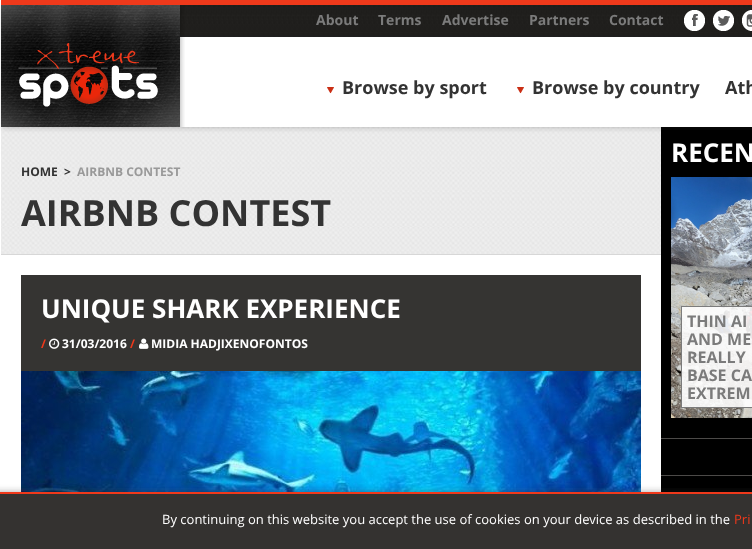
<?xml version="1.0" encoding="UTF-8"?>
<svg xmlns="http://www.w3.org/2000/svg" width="752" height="549">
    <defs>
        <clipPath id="clip1"><path d="M 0 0 H 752 V 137 H 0 Z M 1 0 H 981 V 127 H 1 Z" clip-rule="evenodd"/></clipPath>
        <filter id="blur1" x="-50%" y="-200%" width="200%" height="500%"><feGaussianBlur stdDeviation="2.5"/></filter>
    </defs>
    <rect width="100%" height="100%" fill="#FFFFFF"/>
    <image x="1" y="127" width="660" height="127" href="img_07.png"/>
    <rect x="661" y="127" width="91" height="365" fill="#000000"/>
    <g clip-path="url(#clip1)">
        <rect x="3" y="5" width="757" height="123" fill="#323232" fill-opacity="0.25" filter="url(#blur1)"/>
    </g>
    <rect x="1" y="0" width="751" height="5" fill="#EF391B"/>
    <image x="180" y="5" width="572" height="32" href="img_02.png"/>
    <image x="1" y="5" width="184" height="122" href="img_01.png"/>
    <text x="316" y="25" font-family="Open Sans" font-size="14" font-weight="700" fill="#7B7B7B">About</text>
    <text x="378" y="25" font-family="Open Sans" font-size="14" font-weight="700" fill="#7B7B7B">Terms</text>
    <text x="442" y="25" font-family="Open Sans" font-size="14" font-weight="700" fill="#7B7B7B">Advertise</text>
    <text x="529" y="25" font-family="Open Sans" font-size="14" font-weight="700" fill="#7B7B7B">Partners</text>
    <text x="609" y="25" font-family="Open Sans" font-size="14" font-weight="700" fill="#7B7B7B">Contact</text>
    <image x="684" y="10" width="21" height="21" href="img_03.png"/>
    <image x="713" y="10" width="21" height="21" href="img_04.png"/>
    <image x="742" y="10" width="10" height="21" href="img_05.png"/>
    <image x="327" y="87" width="7" height="7" href="img_06.png"/>
    <text x="342" y="94" font-family="Open Sans" font-size="18" font-weight="700" fill="#333333">Browse by sport</text>
    <image x="517" y="87" width="7" height="7" href="img_06.png"/>
    <text x="532" y="94" font-family="Open Sans" font-size="18" font-weight="700" fill="#333333">Browse by country</text>
    <text x="725" y="94" font-family="Open Sans" font-size="18" font-weight="700" fill="#333333">Ath</text>
    <rect x="1" y="254" width="660" height="1" fill="#D7D7D7"/>
    <text x="21" y="176" font-family="Open Sans" font-size="12" font-weight="700" fill="#333333">HOME</text>
    <text x="64" y="176" font-family="Open Sans" font-size="12" font-weight="700" fill="#333333">&gt;</text>
    <text x="77" y="176" font-family="Open Sans" font-size="12" font-weight="700" fill="#999999">AIRBNB CONTEST</text>
    <text x="21" y="226" font-family="Open Sans" font-size="36" font-weight="700" fill="#333333">AIRBNB CONTEST</text>
    <rect x="21" y="275" width="620" height="96" fill="#353432"/>
    <text x="41" y="318" font-family="Open Sans" font-size="26" font-weight="700" fill="#FFFFFF">UNIQUE SHARK EXPERIENCE</text>
    <text x="41" y="348" font-family="Open Sans" font-size="12" font-weight="700" fill="#EF391B">/</text>
    <image x="49" y="338" width="11" height="11" href="img_08.png"/>
    <text x="62" y="348" font-family="Open Sans" font-size="12" font-weight="700" fill="#FFFFFF">31/03/2016</text>
    <text x="130" y="348" font-family="Open Sans" font-size="12" font-weight="700" fill="#EF391B">/</text>
    <image x="139" y="338" width="10" height="11" href="img_09.png"/>
    <text x="151" y="348" font-family="Open Sans" font-size="12" font-weight="700" fill="#FFFFFF">MIDIA HADJIXENOFONTOS</text>
    <image x="21" y="371" width="620" height="121" href="img_10.png"/>
    <rect x="661" y="438" width="91" height="1" fill="#4C4A48"/>
    <text x="671" y="162" font-family="Open Sans" font-size="26" font-weight="700" fill="#FFFFFF">RECEN</text>
    <image x="671" y="177" width="81" height="241" href="img_11.png"/>
    <rect x="681" y="306" width="71" height="102" fill="#FFFFFF" fill-opacity="0.9"/>
    <rect x="681.5" y="306.5" width="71" height="101" fill="none" stroke="#6E6E6E" stroke-opacity="0.9"/>
    <text font-family="Open Sans" font-size="16" font-weight="700" fill="#7B7B7B">
        <tspan x="687" y="327">THIN AI</tspan>
        <tspan x="687" y="345">AND ME</tspan>
        <tspan x="687" y="363">REALLY</tspan>
        <tspan x="687" y="381">BASE CA</tspan>
        <tspan x="687" y="399">EXTREM</tspan>
    </text>
    <rect x="661" y="475" width="91" height="1" fill="#4C4A48"/>
    <rect x="-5" y="490" width="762" height="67" fill="#323232" fill-opacity="0.25" filter="url(#blur1)"/>
    <rect x="0" y="494" width="752" height="55" fill="#343230"/>
    <rect x="0" y="492" width="752" height="2" fill="#EF391B"/>
    <text x="162" y="524" font-family="Open Sans" font-size="13" fill="#FFFFFF">By continuing on this website you accept the use of cookies on your device as described in the</text>
    <text x="734" y="524" font-family="Open Sans" font-size="13" fill="#EF391B">Pri</text>
</svg>
